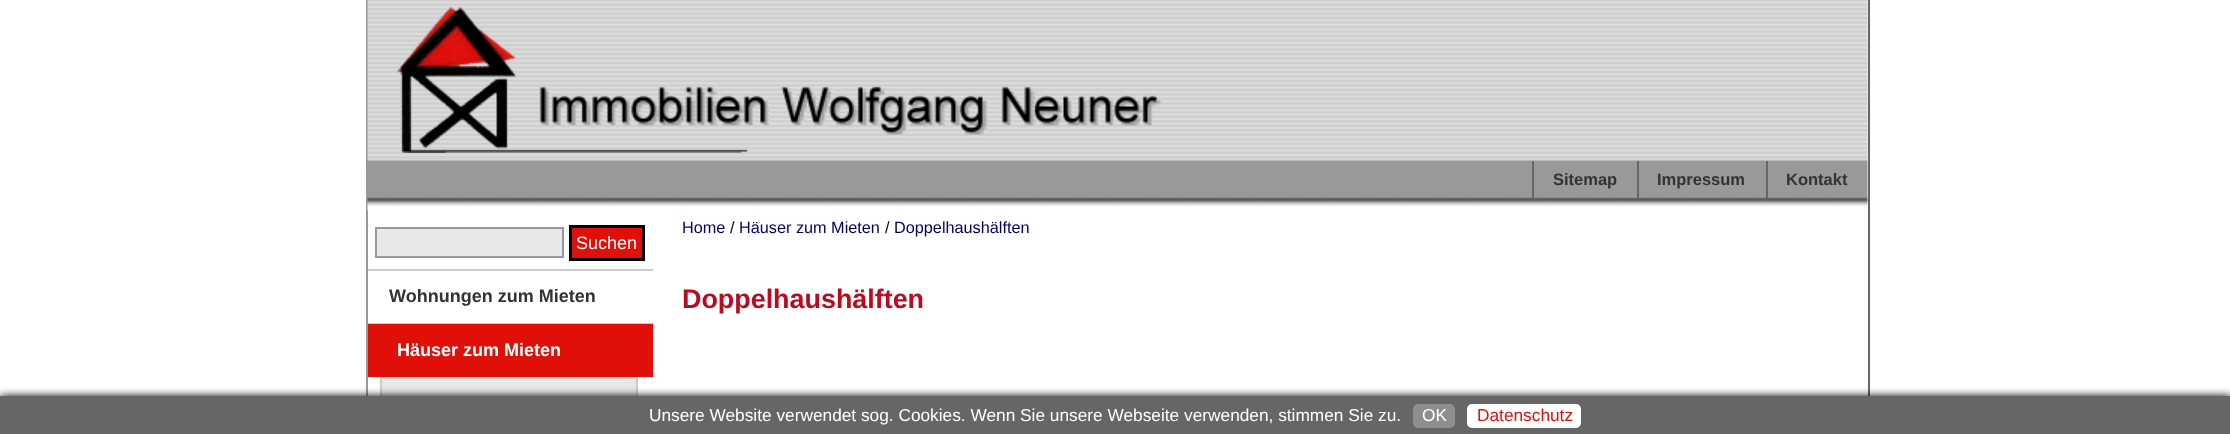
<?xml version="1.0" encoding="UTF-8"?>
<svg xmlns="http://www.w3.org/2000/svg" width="2230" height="434">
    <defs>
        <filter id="blur1" x="-50%" y="-200%" width="200%" height="500%"><feGaussianBlur stdDeviation="4"/></filter>
    </defs>
    <rect width="100%" height="100%" fill="#FFFFFF"/>
    <rect x="1868" y="0" width="2" height="396" fill="#666666"/>
    <rect x="366" y="0" width="2" height="396" fill="#999999"/>
    <image x="367" y="0" width="1501" height="210" href="img_01.png"/>
    <image x="397" y="7" width="765" height="146" href="img_02.png"/>
    <rect x="1532" y="161" width="2" height="37" fill="#666666"/>
    <text x="1553" y="185" font-family="Liberation Sans" font-size="16.5" font-weight="700" fill="#333333">Sitemap</text>
    <rect x="1637" y="161" width="2" height="37" fill="#666666"/>
    <text x="1657" y="185" font-family="Liberation Sans" font-size="16.5" font-weight="700" fill="#333333">Impressum</text>
    <rect x="1766" y="161" width="2" height="37" fill="#666666"/>
    <text x="1786" y="185" font-family="Liberation Sans" font-size="16.5" font-weight="700" fill="#333333">Kontakt</text>
    <rect x="376" y="228" width="187" height="29" fill="#E8E8E8" stroke="#999999" stroke-width="2"/>
    <rect x="570.5" y="226.5" width="73" height="33" fill="#E10F0A" stroke="#000000" stroke-width="3"/>
    <text x="576" y="249" font-family="Liberation Sans" font-size="18" fill="#FFFFFF">Suchen</text>
    <rect x="368" y="269" width="285" height="2" fill="#CCCCCC"/>
    <rect x="368" y="323" width="285" height="1" fill="#CCCCCC"/>
    <text x="389" y="302" font-family="Liberation Sans" font-size="18" font-weight="700" fill="#333333">Wohnungen zum Mieten</text>
    <rect x="368" y="324" width="285" height="53" fill="#E10F0A"/>
    <text x="397" y="356" font-family="Liberation Sans" font-size="18" font-weight="700" fill="#FFFFFF">Häuser zum Mieten</text>
    <rect x="382" y="379" width="254" height="17" fill="#E8E8E8"/>
    <rect x="380" y="377" width="258" height="2" fill="#CCCCCC"/>
    <rect x="636" y="377" width="2" height="19" fill="#CCCCCC"/>
    <rect x="380" y="377" width="2" height="19" fill="#CCCCCC"/>
    <text x="682" y="233" font-family="Liberation Sans" font-size="16.25" fill="#000066">Home</text>
    <text x="730" y="233" font-family="Liberation Sans" font-size="16.25" fill="#000000">/</text>
    <text x="739" y="233" font-family="Liberation Sans" font-size="16.25" fill="#000066">Häuser zum Mieten</text>
    <text x="885" y="233" font-family="Liberation Sans" font-size="16.25" fill="#000000">/</text>
    <text x="894" y="233" font-family="Liberation Sans" font-size="16.25" fill="#000066">Doppelhaushälften</text>
    <text x="682" y="308" font-family="Liberation Sans" font-size="26.9" font-weight="700" fill="#BA0C1E">Doppelhaushälften</text>
    <rect x="0" y="396" width="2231" height="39" fill="#000000" filter="url(#blur1)"/>
    <rect x="0" y="396" width="2230" height="38" fill="#666666"/>
    <text x="649" y="421" font-family="Liberation Sans" font-size="17.3" fill="#FFFFFF">Unsere Website verwendet sog. Cookies. Wenn Sie unsere Webseite verwenden, stimmen Sie zu.</text>
    <rect x="1413" y="404" width="42" height="24" rx="5" fill="#8D8F8F"/>
    <text x="1422" y="421" font-family="Liberation Sans" font-size="17.3" fill="#FFFFFF">OK</text>
    <rect x="1467" y="404" width="114" height="24" rx="5" fill="#FFFFFF"/>
    <text x="1477" y="421" font-family="Liberation Sans" font-size="17.3" fill="#E10F0A">Datenschutz</text>
</svg>
